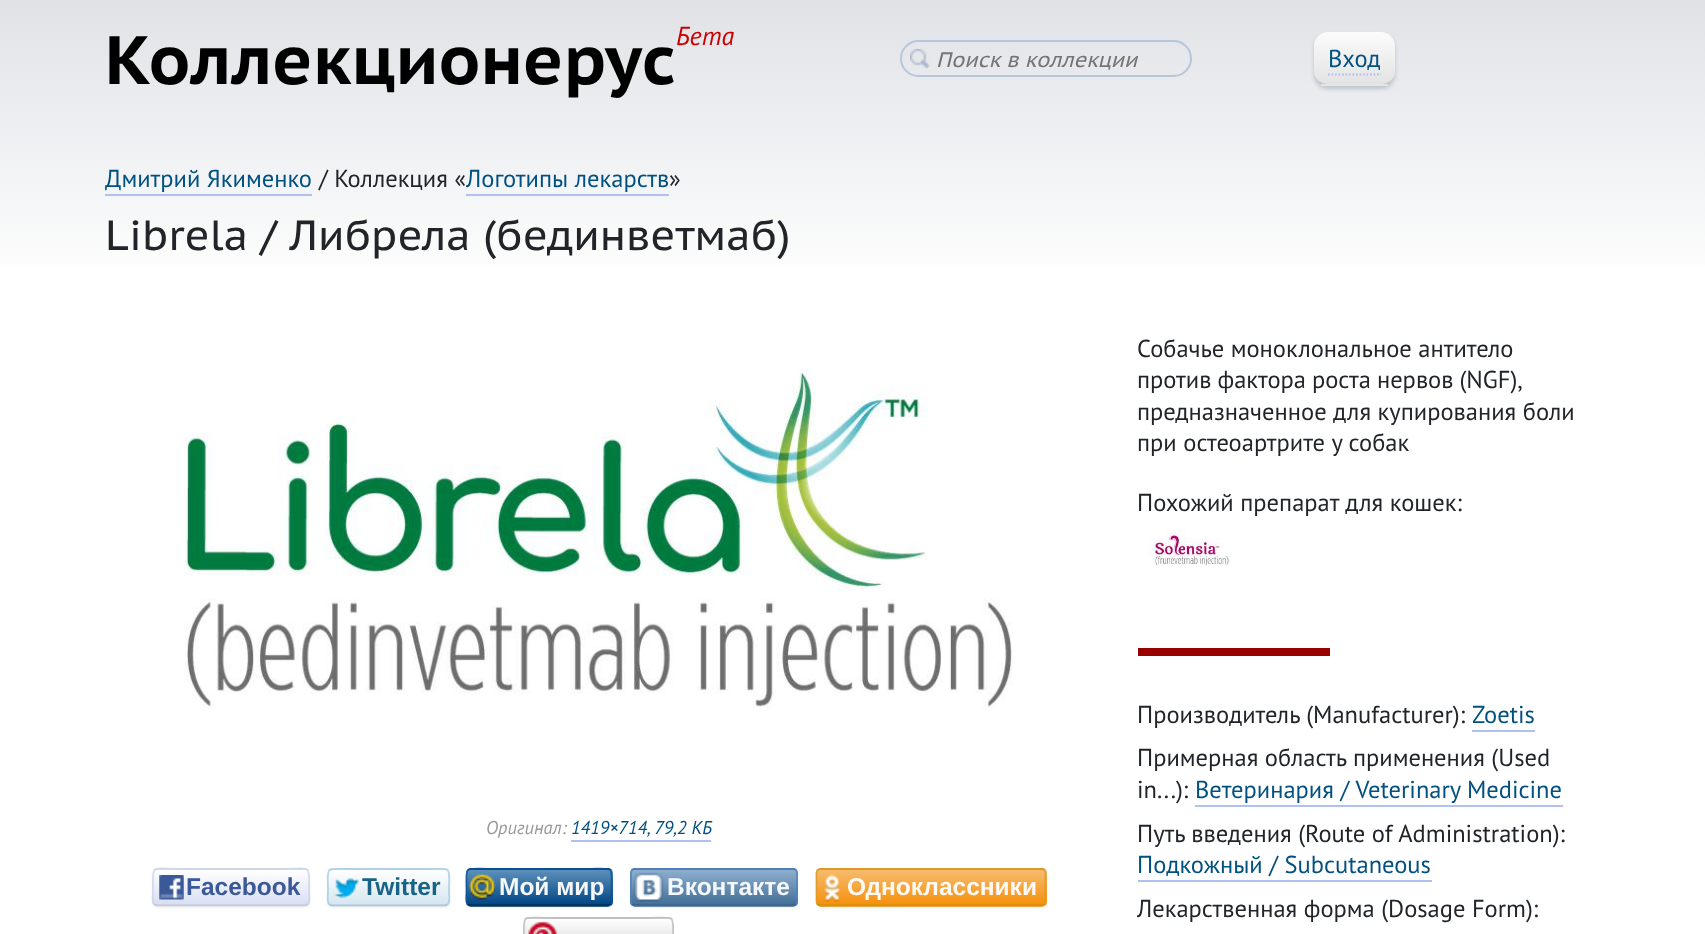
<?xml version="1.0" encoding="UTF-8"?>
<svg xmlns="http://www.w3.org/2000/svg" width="1705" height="934">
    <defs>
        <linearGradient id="g1" gradientUnits="userSpaceOnUse" x1="853" y1="0" x2="853" y2="289"><stop offset="0" stop-color="#E0E2E6"/><stop offset="1" stop-color="#FFFFFF"/></linearGradient>
        <filter id="blur1" x="-50%" y="-200%" width="200%" height="500%"><feGaussianBlur stdDeviation="2"/></filter>
        <linearGradient id="g2" gradientUnits="userSpaceOnUse" x1="1355" y1="31" x2="1355" y2="84"><stop offset="0" stop-color="#FCFCFC"/><stop offset="1" stop-color="#E3E3E3"/></linearGradient>
        <filter id="blur2" x="-50%" y="-200%" width="200%" height="500%"><feGaussianBlur stdDeviation="1"/></filter>
        <clipPath id="clip1"><rect x="152" y="868" width="158" height="39" rx="5"/></clipPath>
        <linearGradient id="g3" gradientUnits="userSpaceOnUse" x1="231" y1="835" x2="231" y2="870"><stop offset="0" stop-color="#FFFFFF"/><stop offset="1" stop-color="#D8DEF4"/></linearGradient>
        <linearGradient id="g4" gradientUnits="userSpaceOnUse" x1="231" y1="870" x2="231" y2="905"><stop offset="0" stop-color="#FFFFFF"/><stop offset="1" stop-color="#D8DEF4"/></linearGradient>
        <linearGradient id="g5" gradientUnits="userSpaceOnUse" x1="231" y1="905" x2="231" y2="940"><stop offset="0" stop-color="#FFFFFF"/><stop offset="1" stop-color="#D8DEF4"/></linearGradient>
        <clipPath id="clip2"><rect x="327" y="868" width="123" height="39" rx="5"/></clipPath>
        <linearGradient id="g6" gradientUnits="userSpaceOnUse" x1="389" y1="835" x2="389" y2="870"><stop offset="0" stop-color="#FFFFFF"/><stop offset="1" stop-color="#D5E6EF"/></linearGradient>
        <linearGradient id="g7" gradientUnits="userSpaceOnUse" x1="389" y1="870" x2="389" y2="905"><stop offset="0" stop-color="#FFFFFF"/><stop offset="1" stop-color="#D5E6EF"/></linearGradient>
        <linearGradient id="g8" gradientUnits="userSpaceOnUse" x1="389" y1="905" x2="389" y2="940"><stop offset="0" stop-color="#FFFFFF"/><stop offset="1" stop-color="#D5E6EF"/></linearGradient>
        <clipPath id="clip3"><rect x="466" y="868" width="147" height="39" rx="5"/></clipPath>
        <linearGradient id="g9" gradientUnits="userSpaceOnUse" x1="539" y1="835" x2="539" y2="870"><stop offset="0" stop-color="#5D90BA"/><stop offset="1" stop-color="#004584"/></linearGradient>
        <linearGradient id="g10" gradientUnits="userSpaceOnUse" x1="539" y1="870" x2="539" y2="905"><stop offset="0" stop-color="#5D90BA"/><stop offset="1" stop-color="#004584"/></linearGradient>
        <linearGradient id="g11" gradientUnits="userSpaceOnUse" x1="539" y1="905" x2="539" y2="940"><stop offset="0" stop-color="#5D90BA"/><stop offset="1" stop-color="#004584"/></linearGradient>
        <clipPath id="clip4"><rect x="630" y="868" width="168" height="39" rx="5"/></clipPath>
        <linearGradient id="g12" gradientUnits="userSpaceOnUse" x1="714" y1="835" x2="714" y2="870"><stop offset="0" stop-color="#8FAECF"/><stop offset="1" stop-color="#436F96"/></linearGradient>
        <linearGradient id="g13" gradientUnits="userSpaceOnUse" x1="714" y1="870" x2="714" y2="905"><stop offset="0" stop-color="#8FAECF"/><stop offset="1" stop-color="#436F96"/></linearGradient>
        <linearGradient id="g14" gradientUnits="userSpaceOnUse" x1="714" y1="905" x2="714" y2="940"><stop offset="0" stop-color="#8FAECF"/><stop offset="1" stop-color="#436F96"/></linearGradient>
        <clipPath id="clip5"><rect x="816" y="868" width="231" height="39" rx="5"/></clipPath>
        <linearGradient id="g15" gradientUnits="userSpaceOnUse" x1="931" y1="835" x2="931" y2="870"><stop offset="0" stop-color="#F6BB6D"/><stop offset="1" stop-color="#F6900B"/></linearGradient>
        <linearGradient id="g16" gradientUnits="userSpaceOnUse" x1="931" y1="870" x2="931" y2="905"><stop offset="0" stop-color="#F6BB6D"/><stop offset="1" stop-color="#F6900B"/></linearGradient>
        <linearGradient id="g17" gradientUnits="userSpaceOnUse" x1="931" y1="905" x2="931" y2="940"><stop offset="0" stop-color="#F6BB6D"/><stop offset="1" stop-color="#F6900B"/></linearGradient>
        <clipPath id="clip6"><rect x="523" y="917" width="151" height="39" rx="5"/></clipPath>
        <linearGradient id="g18" gradientUnits="userSpaceOnUse" x1="599" y1="884" x2="599" y2="919"><stop offset="0" stop-color="#FEFEFE"/><stop offset="1" stop-color="#D3D3D3"/></linearGradient>
        <linearGradient id="g19" gradientUnits="userSpaceOnUse" x1="599" y1="919" x2="599" y2="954"><stop offset="0" stop-color="#FEFEFE"/><stop offset="1" stop-color="#D3D3D3"/></linearGradient>
    </defs>
    <rect width="100%" height="100%" fill="#FFFFFF"/>
    <rect x="0" y="0" width="1705" height="266" fill="url(#g1)"/>
    <text x="105" y="84" font-family="PT Sans Caption" font-size="68.25" font-weight="700" fill="#000000">Коллекционерус</text>
    <text x="676" y="45" font-family="PT Sans" font-size="26" font-style="italic" fill="#CC0000">Бета</text>
    <image x="910" y="49" width="20" height="20" href="img_01.png"/>
    <rect x="901" y="41" width="290" height="35" rx="17.5" fill="none" stroke="#B6C6DB" stroke-width="2"/>
    <text x="936" y="67" font-family="PT Sans Caption" font-size="21" font-style="italic" fill="#757575">Поиск в коллекции</text>
    <rect x="1314" y="35" width="81" height="54" rx="14" fill="#BBC5CC" filter="url(#blur1)"/>
    <path d="M 1328 32 H 1381 C 1388 32 1395 38 1395 46 V 72 C 1395 79 1388 84 1381 84 H 1328 C 1321 84 1314 79 1314 72 V 46 C 1314 38 1321 32 1328 32 Z" fill="url(#g2)"/>
    <rect x="1321" y="84" width="67" height="2" fill="#E5E5E5"/>
    <text x="1328" y="67" font-family="PT Sans" font-size="24.5" fill="#005080">Вход</text>
    <path d="M 1328 74.5 H 1381" fill="none" stroke="#B0C0F0" stroke-width="1.8" stroke-dasharray="1.75 1.75"/>
    <text x="105" y="187" font-family="PT Sans" font-size="24.5" fill="#005080">Дмитрий Якименко</text>
    <rect x="105" y="194" width="207" height="2" fill="#B0C0F0"/>
    <text x="319" y="187" font-family="PT Sans" font-size="24.5" fill="#212529">/ Коллекция «</text>
    <text x="466" y="187" font-family="PT Sans" font-size="24.5" fill="#005080">Логотипы лекарств</text>
    <rect x="466" y="194" width="203" height="2" fill="#B0C0F0"/>
    <text x="669" y="187" font-family="PT Sans" font-size="24.5" fill="#212529">»</text>
    <text x="105" y="250" font-family="PT Sans Caption" font-size="42" fill="#212529">Librela / Либрела (бединветмаб)</text>
    <image x="184" y="369" width="829" height="341" href="img_02.png"/>
    <text x="486" y="834" font-family="PT Sans" font-size="18.5" font-style="italic" fill="#999999">Оригинал:</text>
    <text x="571" y="834" font-family="PT Sans" font-size="18.5" font-style="italic" fill="#005080">1419×714, 79,2 КБ</text>
    <rect x="571" y="840" width="140" height="2" fill="#B0C0F0"/>
    <rect x="152" y="870" width="158" height="38" rx="5" fill="#000000" fill-opacity="0.05" filter="url(#blur2)"/>
    <g clip-path="url(#clip1)">
        <rect x="152" y="868" width="158" height="2" fill="url(#g3)"/>
        <rect x="152" y="870" width="158" height="35" fill="url(#g4)"/>
        <rect x="152" y="905" width="158" height="2" fill="url(#g5)"/>
    </g>
    <path d="M 307.5 904.5 C 307 905 305.5 905.5 304.5 905.5 H 157.5 C 156.5 905.5 155 905 154.5 904.5" fill="none" stroke="#BDC2CB" stroke-opacity="0.8" stroke-width="1.8"/>
    <path d="M 154.5 904.5 C 151.5 901.5 153 895 153 892 C 153 863 149 869 182 869 H 280 C 313 869 309 863 309 892 C 309 895 310.5 901.5 307.5 904.5" fill="none" stroke="#CAD4E7" stroke-opacity="0.8" stroke-width="1.8"/>
    <image x="159" y="875" width="25" height="25" href="img_03.png"/>
    <text x="186" y="895" font-family="Liberation Sans" font-size="24.5" font-weight="700" fill="#3B5998">Facebook</text>
    <rect x="327" y="870" width="123" height="38" rx="5" fill="#000000" fill-opacity="0.05" filter="url(#blur2)"/>
    <g clip-path="url(#clip2)">
        <rect x="327" y="868" width="123" height="2" fill="url(#g6)"/>
        <rect x="327" y="870" width="123" height="35" fill="url(#g7)"/>
        <rect x="327" y="905" width="123" height="2" fill="url(#g8)"/>
    </g>
    <path d="M 447.5 904.5 C 447 905 445.5 905.5 444.5 905.5 H 332.5 C 331.5 905.5 330 905 329.5 904.5" fill="none" stroke="#9EBACC" stroke-opacity="0.8" stroke-width="1.8"/>
    <path d="M 329.5 904.5 C 326.5 901.5 328 895 328 892 C 328 865 323.5 869 351 869 H 426 C 453.5 869 449 865 449 892 C 449 895 450.5 901.5 447.5 904.5" fill="none" stroke="#A4CCE5" stroke-opacity="0.8" stroke-width="1.8"/>
    <image x="334" y="878" width="25" height="20" href="img_04.png"/>
    <text x="362" y="895" font-family="Liberation Sans" font-size="24.5" font-weight="700" fill="#186487">Twitter</text>
    <rect x="466" y="870" width="147" height="38" rx="5" fill="#000000" fill-opacity="0.05" filter="url(#blur2)"/>
    <g clip-path="url(#clip3)">
        <rect x="466" y="868" width="147" height="2" fill="url(#g9)"/>
        <rect x="466" y="870" width="147" height="35" fill="url(#g10)"/>
        <rect x="466" y="905" width="147" height="2" fill="url(#g11)"/>
    </g>
    <path d="M 610.5 904.5 L 607 905.5 H 470.5 L 467.5 904.5" fill="none" stroke="#031B30" stroke-opacity="0.8" stroke-width="1.8"/>
    <path d="M 467.5 904.5 C 465 901.5 466.5 895 466.5 892 C 466.5 863.5 462 869 493.5 869 H 584.5 C 616 869 611.5 863.5 611.5 892 C 611.5 895 613 901.5 610.5 904.5" fill="none" stroke="#0B5499" stroke-opacity="0.8" stroke-width="1.8"/>
    <image x="469" y="873" width="27" height="27" href="img_05.png"/>
    <text x="499" y="895" font-family="Liberation Sans" font-size="24.5" font-weight="700" fill="#F5F8FA">Мой мир</text>
    <rect x="630" y="870" width="168" height="38" rx="5" fill="#000000" fill-opacity="0.05" filter="url(#blur2)"/>
    <g clip-path="url(#clip4)">
        <rect x="630" y="868" width="168" height="2" fill="url(#g12)"/>
        <rect x="630" y="870" width="168" height="35" fill="url(#g13)"/>
        <rect x="630" y="905" width="168" height="2" fill="url(#g14)"/>
    </g>
    <path d="M 796 904.5 C 795 905 794 905.5 793 905.5 H 635 C 634 905.5 633 905 632 904.5" fill="none" stroke="#34587F" stroke-opacity="0.8" stroke-width="1.8"/>
    <path d="M 632 904.5 C 631.5 903.5 631 902.5 631 901 V 873 C 631 872 631.5 871 632 870 C 633 869.5 634 869 635 869 H 793 C 794 869 795 869.5 796 870 C 796.5 871 797 872 797 873 V 901 C 797 902.5 796.5 903.5 796 904.5" fill="none" stroke="#4E83C1" stroke-opacity="0.8" stroke-width="1.8"/>
    <image x="633" y="873" width="31" height="29" href="img_06.png"/>
    <text x="667" y="895" font-family="Liberation Sans" font-size="24.5" font-weight="700" fill="#F5F8FA">Вконтакте</text>
    <rect x="816" y="870" width="231" height="38" rx="5" fill="#000000" fill-opacity="0.05" filter="url(#blur2)"/>
    <g clip-path="url(#clip5)">
        <rect x="816" y="868" width="231" height="2" fill="url(#g15)"/>
        <rect x="816" y="870" width="231" height="35" fill="url(#g16)"/>
        <rect x="816" y="905" width="231" height="2" fill="url(#g17)"/>
    </g>
    <path d="M 1044.5 904.5 L 1041 905.5 H 820.5 L 817.5 904.5" fill="none" stroke="#C58907" stroke-opacity="0.8" stroke-width="1.8"/>
    <path d="M 817.5 904.5 C 817 903.5 816.5 902.5 816.5 901 V 873 C 816.5 872 817 871 817.5 870 C 818.5 869.5 819.5 869 821 869 H 1041 C 1042.5 869 1043.5 869.5 1044.5 870 C 1045 871 1045.5 872 1045.5 873 V 901 C 1045.5 902.5 1045 903.5 1044.5 904.5" fill="none" stroke="#D99A26" stroke-opacity="0.8" stroke-width="1.8"/>
    <image x="824" y="875" width="16" height="27" href="img_07.png"/>
    <text x="847" y="895" font-family="Liberation Sans" font-size="24.5" font-weight="700" fill="#FFFAF5">Одноклассники</text>
    <g clip-path="url(#clip6)">
        <rect x="523" y="917" width="151" height="2" fill="url(#g18)"/>
        <rect x="523" y="919" width="151" height="15" fill="url(#g19)"/>
    </g>
    <path d="M 525.5 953.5 C 522.5 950.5 524 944 524 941 C 524 912 520 918 552 918 H 645 C 677 918 673 912 673 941 C 673 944 674.5 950.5 671.5 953.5" fill="none" stroke="#BABABA" stroke-opacity="0.8" stroke-width="1.8"/>
    <image x="528" y="921" width="29" height="13" href="img_08.png"/>
    <text font-family="PT Sans" font-size="24.5" fill="#212529">
        <tspan x="1137" y="357">Собачье моноклональное антитело</tspan>
        <tspan x="1137" y="388" word-spacing="-0.5">против фактора роста нервов (NGF),</tspan>
        <tspan x="1137" y="420">предназначенное для купирования боли</tspan>
        <tspan x="1137" y="451">при остеоартрите у собак</tspan>
    </text>
    <text x="1137" y="511" font-family="PT Sans" font-size="24.5" fill="#212529">Похожий препарат для кошек:</text>
    <image x="1148" y="529" width="83" height="37" href="img_09.png"/>
    <rect x="1138" y="648" width="192" height="8" fill="#990000"/>
    <text x="1137" y="723" font-family="PT Sans" font-size="24.5" fill="#212529">Производитель (Manufacturer):</text>
    <text x="1472" y="723" font-family="PT Sans" font-size="24.5" fill="#005080">Zoetis</text>
    <rect x="1472" y="730" width="63" height="2" fill="#B0C0F0"/>
    <text font-family="PT Sans" font-size="24.5" fill="#212529">
        <tspan x="1137" y="766">Примерная область применения (Used</tspan>
        <tspan x="1137" y="798">in...):</tspan>
    </text>
    <text x="1195" y="798" font-family="PT Sans" font-size="24.5" fill="#005080">Ветеринария / Veterinary Medicine</text>
    <rect x="1195" y="805" width="368" height="2" fill="#B0C0F0"/>
    <text x="1137" y="842" font-family="PT Sans" font-size="24.5" fill="#212529">Путь введения (Route of Administration):</text>
    <text x="1137" y="873" font-family="PT Sans" font-size="24.5" fill="#005080">Подкожный / Subcutaneous</text>
    <rect x="1138" y="880" width="294" height="2" fill="#B0C0F0"/>
    <text x="1137" y="917" font-family="PT Sans" font-size="24.5" fill="#212529">Лекарственная форма (Dosage Form):</text>
</svg>
